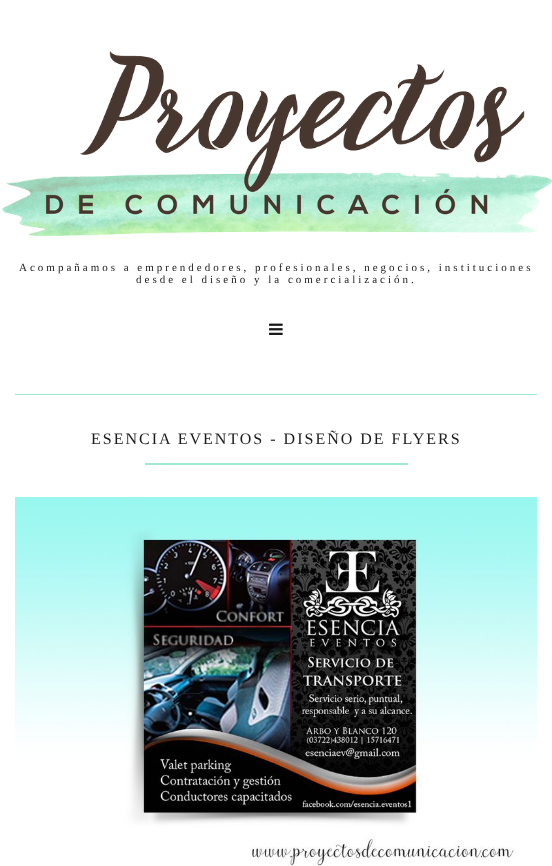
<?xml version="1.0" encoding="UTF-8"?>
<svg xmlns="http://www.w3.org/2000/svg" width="552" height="866">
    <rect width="100%" height="100%" fill="#FFFFFF"/>
    <image x="1" y="51" width="551" height="185" href="img_01.png"/>
    <text x="19" y="271" font-family="Liberation Serif" font-size="11" letter-spacing="3" fill="#1A1A1A">Acompañamos a emprendedores, profesionales, negocios, instituciones</text>
    <text x="136" y="283" font-family="Liberation Serif" font-size="11" letter-spacing="3" fill="#1A1A1A">desde el diseño y la comercialización.</text>
    <image x="269" y="323" width="14" height="12" href="img_02.png"/>
    <rect x="15" y="394" width="522" height="1" fill="#9FEACD"/>
    <text x="91" y="444" font-family="Liberation Serif" font-size="16" letter-spacing="2" fill="#1A1A1A">ESENCIA EVENTOS - DISEÑO DE FLYERS</text>
    <rect x="145" y="463" width="263" height="2" fill="#9FEACD"/>
    <image x="15" y="497" width="522" height="369" href="img_03.png"/>
</svg>
